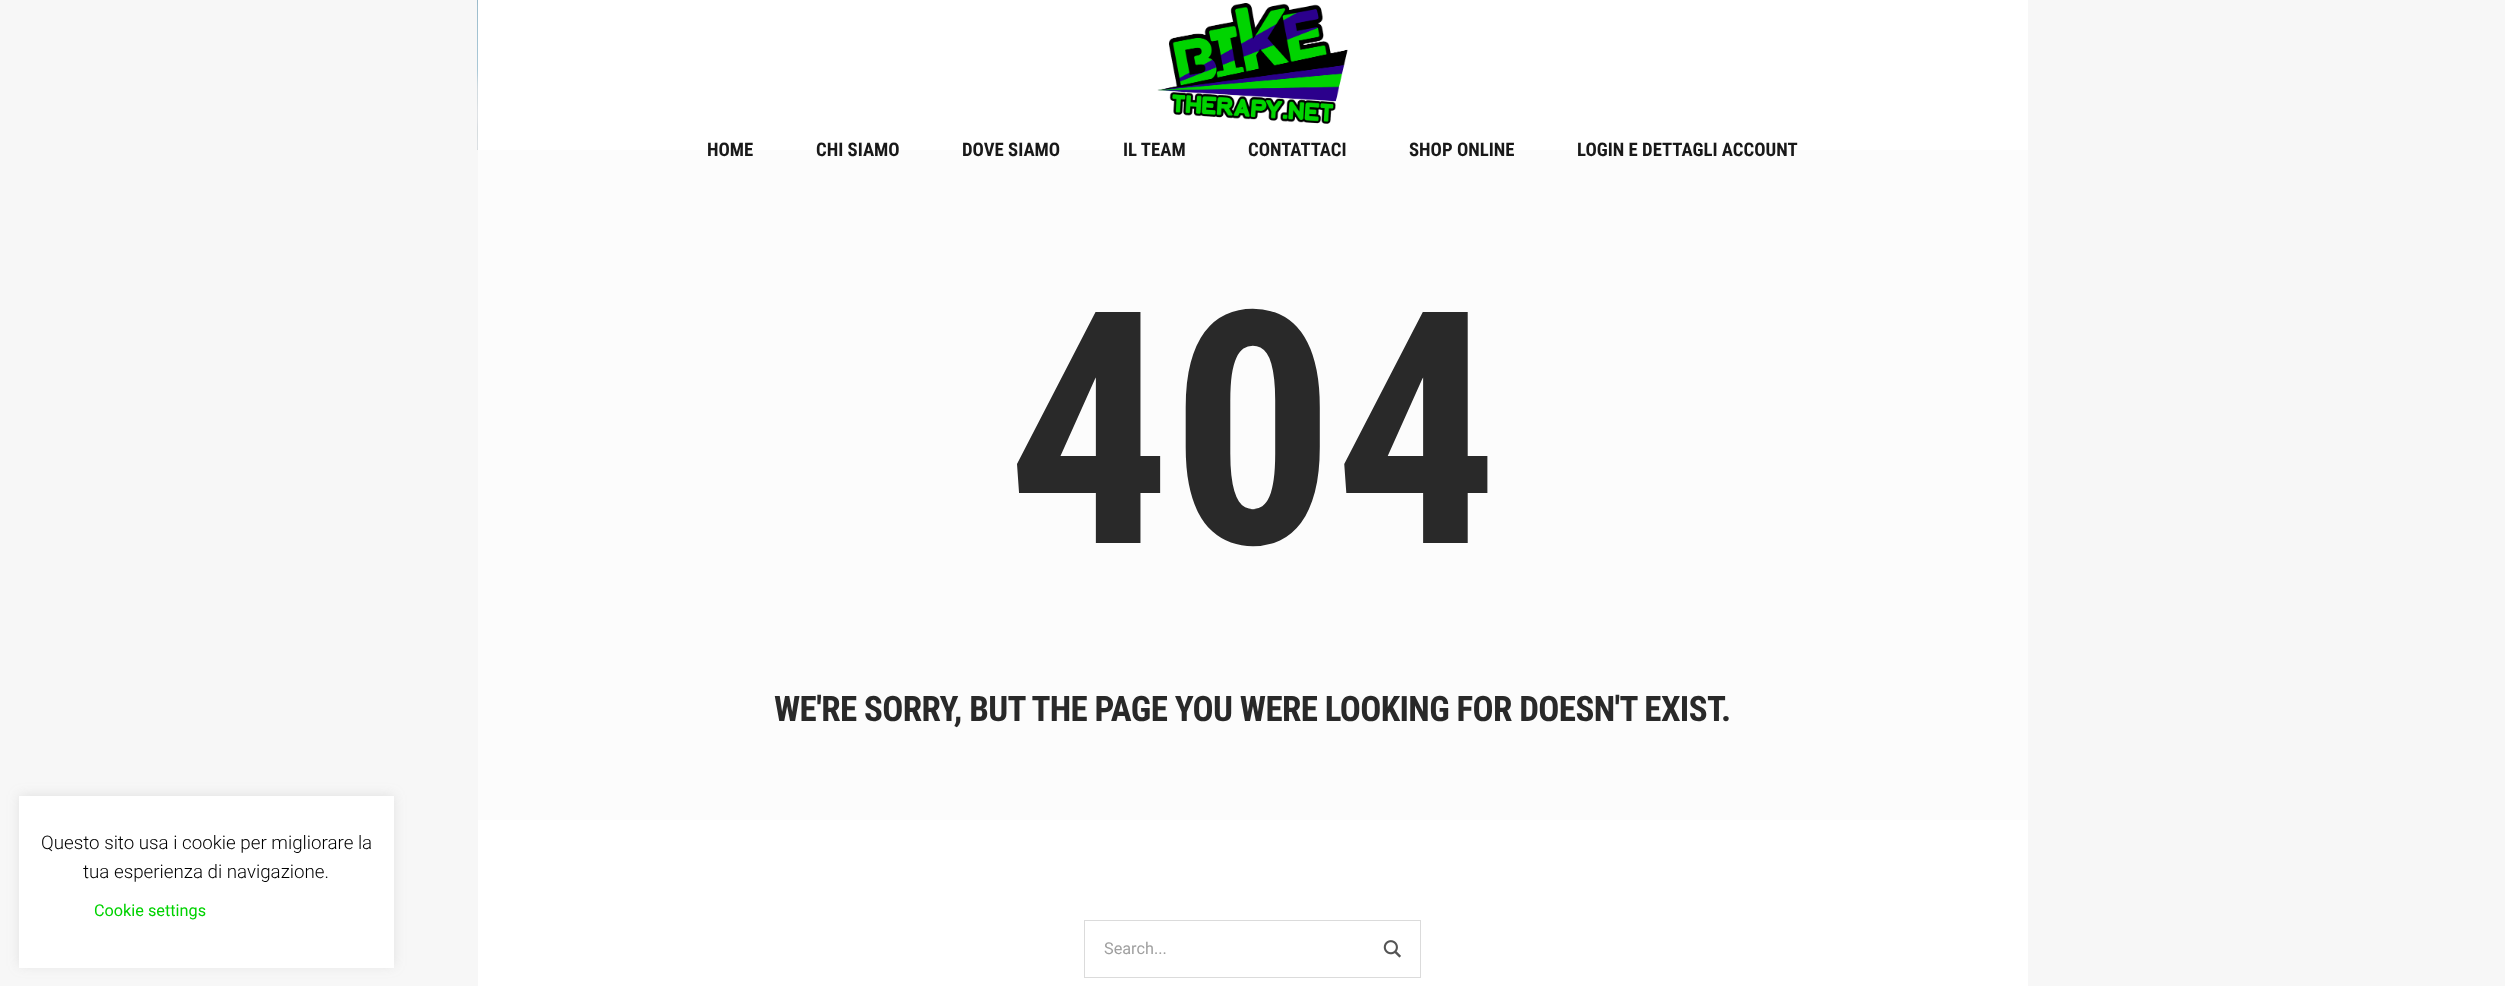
<?xml version="1.0" encoding="UTF-8"?>
<svg xmlns="http://www.w3.org/2000/svg" width="2505" height="986">
    <defs>
        <filter id="blur1" x="-50%" y="-200%" width="200%" height="500%"><feGaussianBlur stdDeviation="6"/></filter>
    </defs>
    <rect width="100%" height="100%" fill="#F7F7F7"/>
    <rect x="19" y="795" width="375" height="171" fill="#ACABAB" fill-opacity="0.3" filter="url(#blur1)"/>
    <rect x="19" y="796" width="375" height="172" fill="#FFFFFF"/>
    <text x="41" y="849" font-family="Roboto" font-size="18.75" font-weight="300" fill="#000000">Questo sito usa i cookie per migliorare la</text>
    <text x="83" y="878" font-family="Roboto" font-size="18.75" font-weight="300" fill="#000000">tua esperienza di navigazione.</text>
    <text x="94" y="916" font-family="Roboto" font-size="16.25" fill="#00D200">Cookie settings</text>
    <rect x="478" y="0" width="1550" height="150" fill="#FFFFFF"/>
    <image x="1157" y="3" width="191" height="121" href="img_01.png"/>
    <rect x="478" y="150" width="1550" height="670" fill="#FCFCFC"/>
    <text x="707" y="156" font-family="Roboto Condensed" font-size="18.75" font-weight="700" fill="#191919">HOME</text>
    <text x="816" y="156" font-family="Roboto Condensed" font-size="18.75" font-weight="700" fill="#191919">CHI SIAMO</text>
    <text x="962" y="156" font-family="Roboto Condensed" font-size="18.75" font-weight="700" fill="#191919">DOVE SIAMO</text>
    <text x="1123" y="156" font-family="Roboto Condensed" font-size="18.75" font-weight="700" fill="#191919">IL TEAM</text>
    <text x="1248" y="156" font-family="Roboto Condensed" font-size="18.75" font-weight="700" fill="#191919">CONTATTACI</text>
    <text x="1409" y="156" font-family="Roboto Condensed" font-size="18.75" font-weight="700" fill="#191919">SHOP ONLINE</text>
    <text x="1577" y="156" font-family="Roboto Condensed" font-size="18.75" font-weight="700" fill="#191919">LOGIN E DETTAGLI ACCOUNT</text>
    <image x="477" y="0" width="1" height="150" href="img_02.png"/>
    <rect x="478" y="820" width="1550" height="166" fill="#FFFFFF"/>
    <text x="1007" y="543" font-family="Roboto Condensed" font-size="325" font-weight="700" letter-spacing="-0.62" fill="#292929">404</text>
    <text x="774" y="721" font-family="Roboto Condensed" font-size="35" font-weight="700" letter-spacing="-0.62" fill="#292929">WE'RE SORRY, BUT THE PAGE YOU WERE LOOKING FOR DOESN'T EXIST.</text>
    <rect x="1084.5" y="920.5" width="336" height="57" fill="none" stroke="#DBDBDB"/>
    <text x="1104" y="954" font-family="Roboto" font-size="16.25" fill="#A0A0A0">Search...</text>
    <image x="1383" y="940" width="18" height="18" href="img_03.png"/>
</svg>
